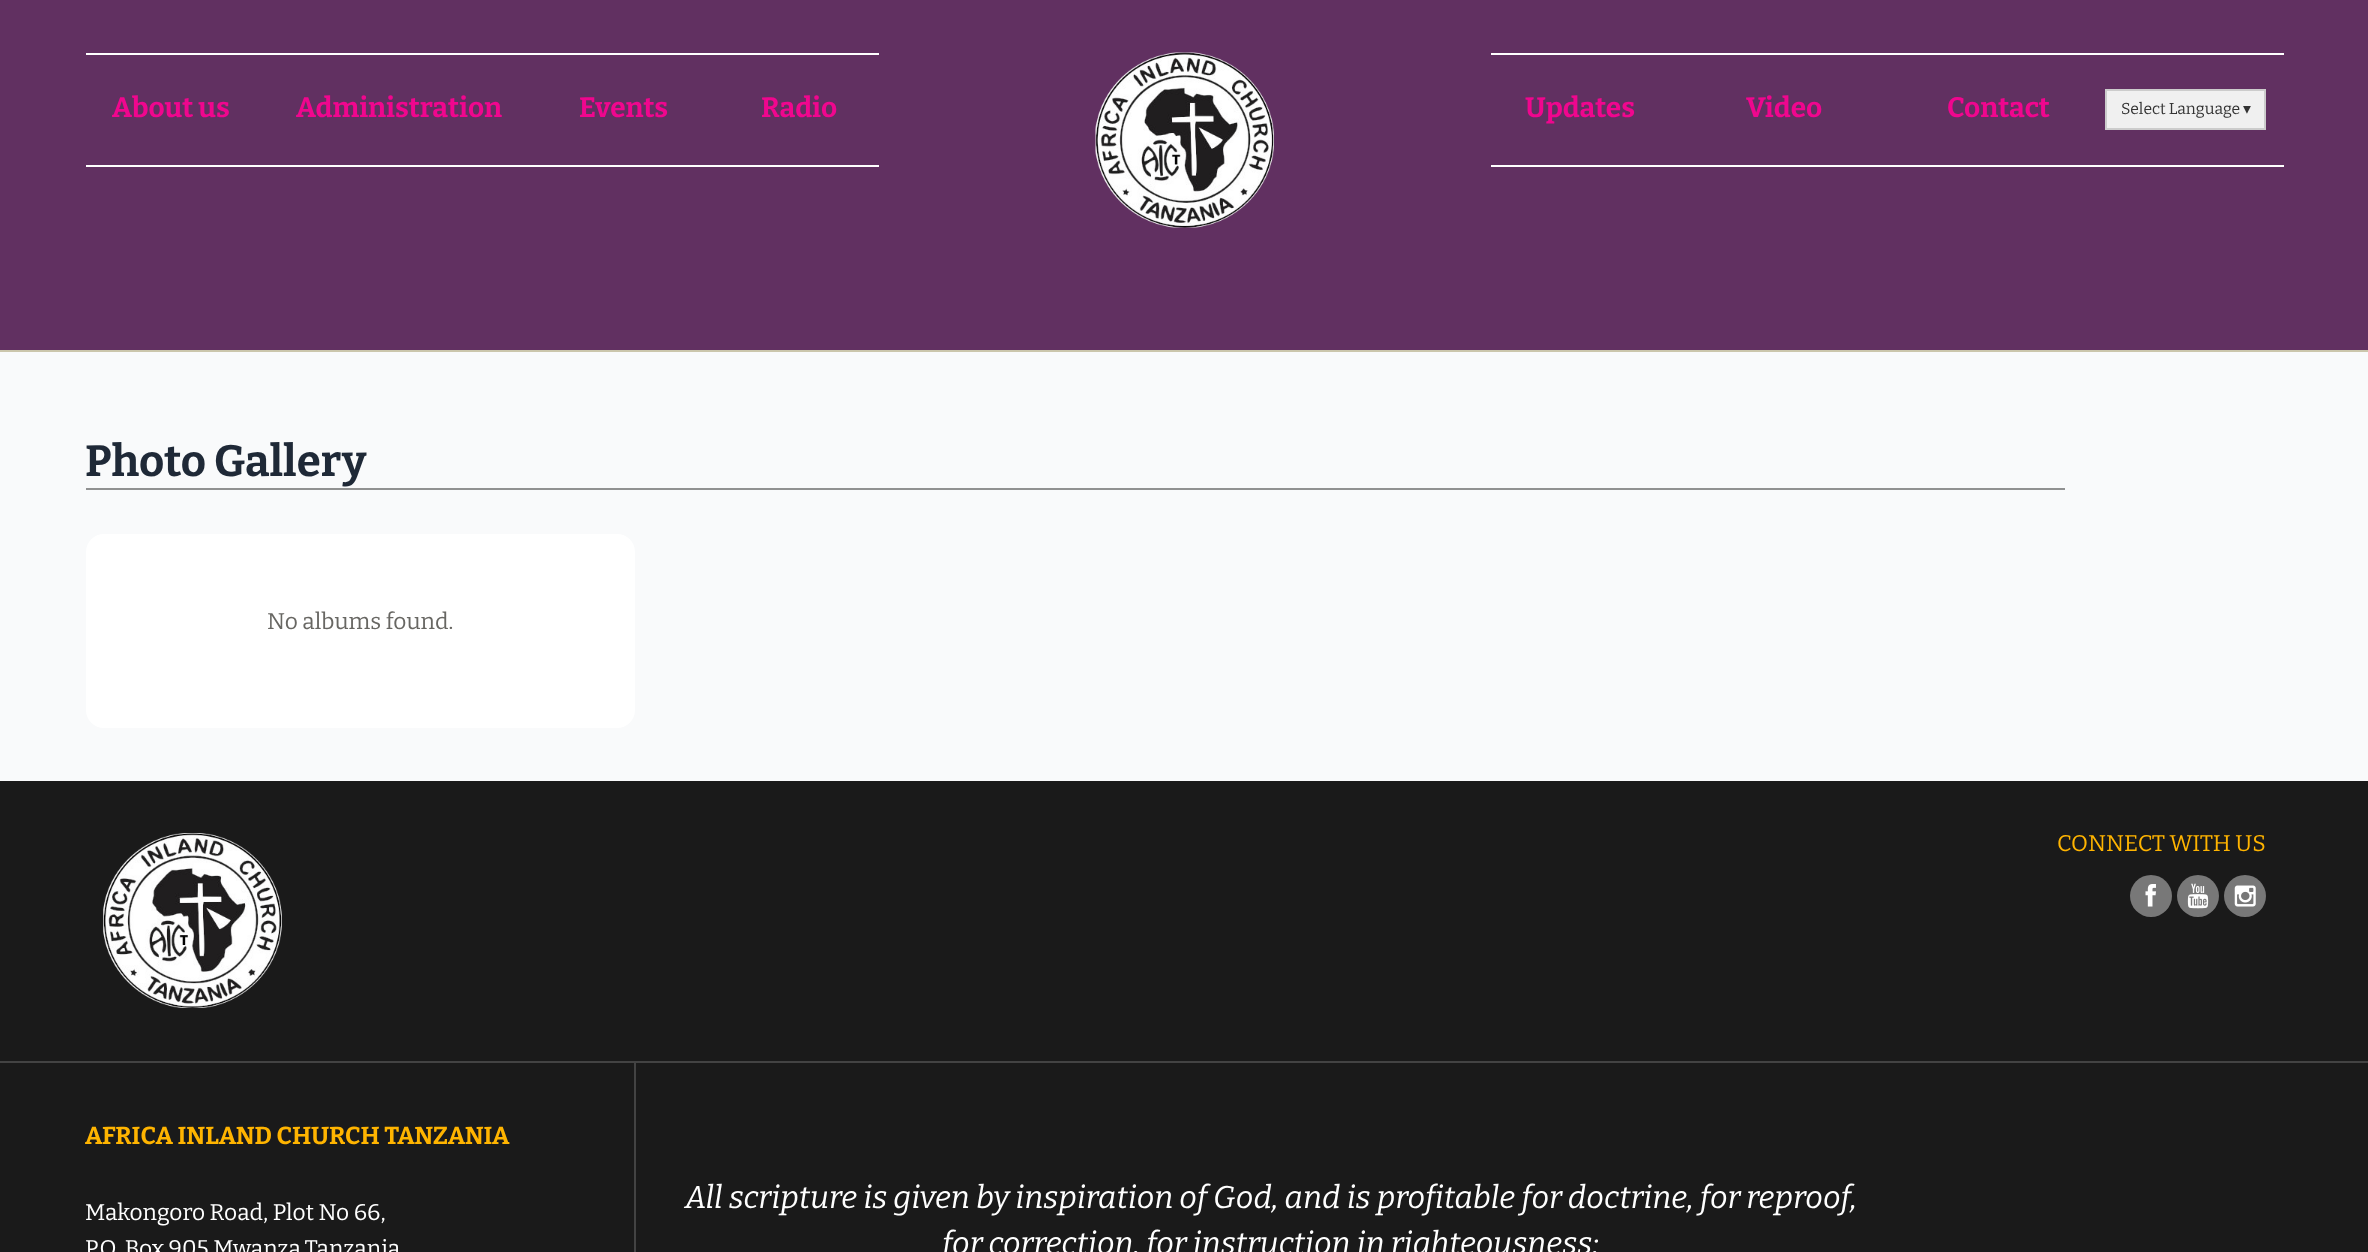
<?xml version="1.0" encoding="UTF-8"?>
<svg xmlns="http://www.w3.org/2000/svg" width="2368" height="1252">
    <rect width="100%" height="100%" fill="#1A1A1A"/>
    <rect x="0" y="0" width="2368" height="350" fill="#613061"/>
    <rect x="86" y="53" width="793" height="2" fill="#FFFFFF"/>
    <rect x="86" y="165" width="793" height="2" fill="#FFFFFF"/>
    <text x="112" y="117" font-family="Bitter" font-size="28" font-weight="700" fill="#F0068E">About us</text>
    <text x="296" y="117" font-family="Bitter" font-size="28" font-weight="700" fill="#F0068E">Administration</text>
    <text x="579" y="117" font-family="Bitter" font-size="28" font-weight="700" fill="#F0068E">Events</text>
    <text x="761" y="117" font-family="Bitter" font-size="28" font-weight="700" fill="#F0068E">Radio</text>
    <image x="1095" y="52" width="179" height="176" href="img_01.png"/>
    <rect x="1491" y="53" width="793" height="2" fill="#FFFFFF"/>
    <rect x="1491" y="165" width="793" height="2" fill="#FFFFFF"/>
    <text x="1525" y="117" font-family="Bitter" font-size="28" font-weight="700" fill="#F0068E">Updates</text>
    <text x="1746" y="117" font-family="Bitter" font-size="28" font-weight="700" fill="#F0068E">Video</text>
    <text x="1947" y="117" font-family="Bitter" font-size="28" font-weight="700" fill="#F0068E">Contact</text>
    <rect x="2106" y="90" width="159" height="39" fill="#F0F0F0" stroke="#CCCCCC" stroke-width="2"/>
    <text x="2121" y="114" font-family="Bitter" font-size="15.75" fill="#333333">Select Language</text>
    <text x="2243" y="114" font-family="DejaVu Sans" font-size="15.75" fill="#333333">▾</text>
    <rect x="0" y="352" width="2368" height="429" fill="#F9FAFB"/>
    <rect x="0" y="350" width="2368" height="2" fill="#CBC6AC"/>
    <text x="85" y="476" font-family="Bitter" font-size="43.75" font-weight="700" fill="#1F2937">Photo Gallery</text>
    <rect x="86" y="488" width="1979" height="2" fill="#909191"/>
    <rect x="86" y="534" width="549" height="194" rx="18" fill="#FFFFFF"/>
    <text x="267" y="629" font-family="Bitter" font-size="22.75" fill="#686763">No albums found.</text>
    <rect x="0" y="1061" width="2368" height="2" fill="#434343"/>
    <image x="103" y="833" width="179" height="175" href="img_02.png"/>
    <text x="2057" y="851" font-family="Bitter" font-size="22.75" fill="#FFB400">CONNECT WITH US</text>
    <circle cx="2151" cy="896" r="21" fill="#787878"/>
    <image x="2145" y="884" width="11" height="23" href="img_03.png"/>
    <circle cx="2198" cy="896" r="21" fill="#787878"/>
    <image x="2187" y="883" width="22" height="26" href="img_04.png"/>
    <circle cx="2245" cy="896" r="21" fill="#787878"/>
    <image x="2234" y="885" width="22" height="22" href="img_05.png"/>
    <rect x="634" y="1062" width="2" height="190" fill="#434343"/>
    <text x="85" y="1144" font-family="Bitter" font-size="24.5" font-weight="700" fill="#FFB400">AFRICA INLAND CHURCH TANZANIA</text>
    <text font-family="Bitter" font-size="22.75" fill="#FFFFFF">
        <tspan x="85" y="1220">Makongoro Road, Plot No 66,</tspan>
        <tspan x="85" y="1256">P.O. Box 905 Mwanza,Tanzania</tspan>
    </text>
    <text x="685" y="1208" font-family="Bitter" font-size="31.5" font-weight="100" font-style="italic" fill="#FFFFFF">All scripture is given by inspiration of God, and is profitable for doctrine, for reproof,</text>
    <text x="942" y="1254" font-family="Bitter" font-size="31.5" font-weight="100" font-style="italic" fill="#FFFFFF">for correction, for instruction in righteousness:</text>
</svg>
